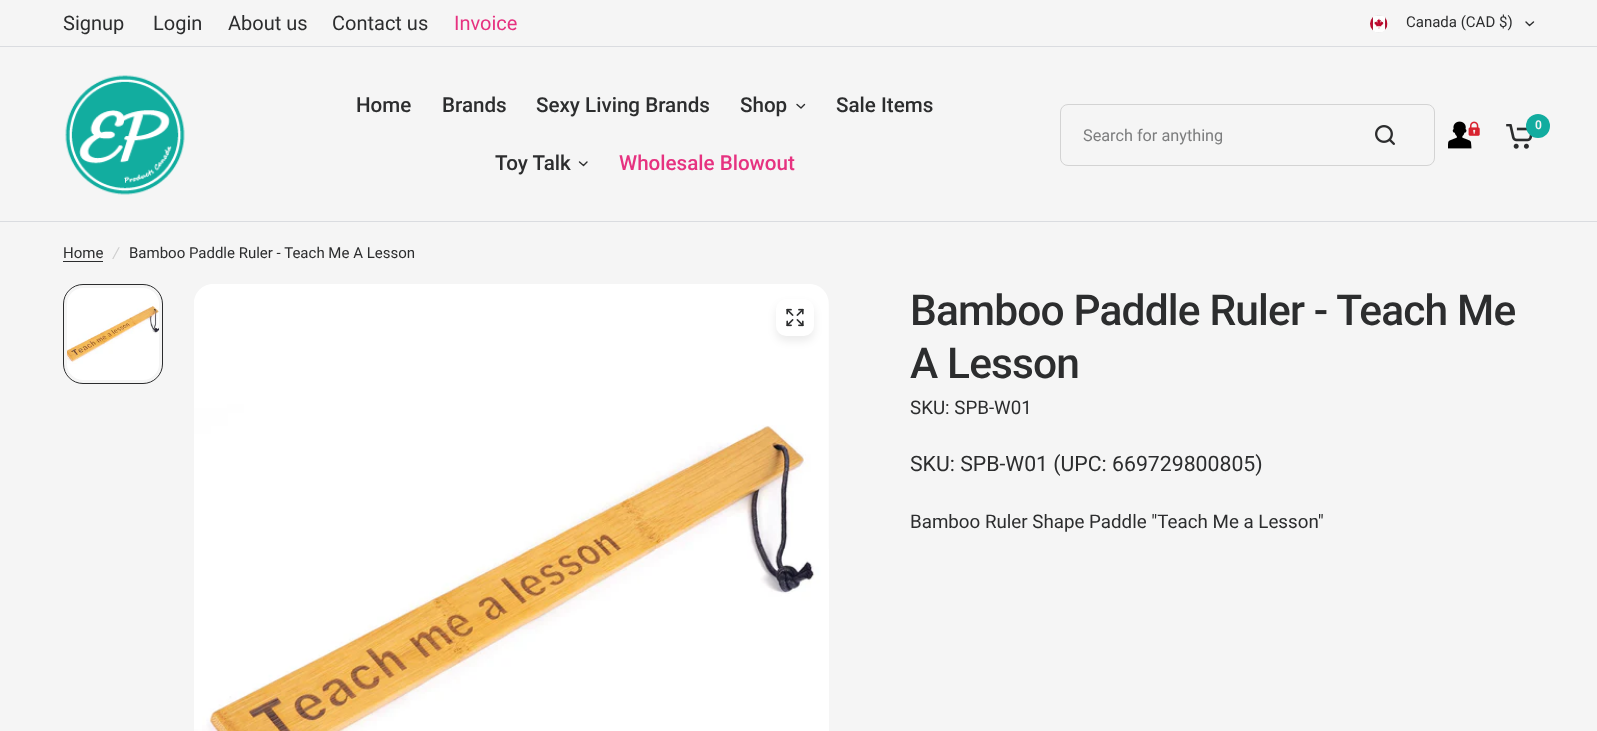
<?xml version="1.0" encoding="UTF-8"?>
<svg xmlns="http://www.w3.org/2000/svg" width="1597" height="731">
    <defs>
        <filter id="blur1" x="-50%" y="-200%" width="200%" height="500%"><feGaussianBlur stdDeviation="4"/></filter>
    </defs>
    <rect width="100%" height="100%" fill="#F5F5F5"/>
    <rect x="0" y="46" width="1597" height="1" fill="#DADCE0"/>
    <text x="63" y="30" font-family="Roboto" font-size="20" fill="#2C2D2E">Signup</text>
    <text x="153" y="30" font-family="Roboto" font-size="20" fill="#2C2D2E">Login</text>
    <text x="228" y="30" font-family="Roboto" font-size="20" fill="#2C2D2E">About us</text>
    <text x="332" y="30" font-family="Roboto" font-size="20" fill="#2C2D2E">Contact us</text>
    <text x="454" y="30" font-family="Roboto" font-size="20" fill="#E63280">Invoice</text>
    <image x="1370" y="15" width="18" height="18" href="img_01.png"/>
    <text x="1406" y="27" font-family="Roboto" font-size="15" fill="#2C2D2E">Canada (CAD $)</text>
    <path d="M 1533.5 22 L 1529.5 25.5 L 1526 22" fill="none" stroke="#2C2D2E" stroke-width="1.4" stroke-linecap="round" stroke-linejoin="round"/>
    <image x="65" y="75" width="120" height="120" href="img_02.png"/>
    <text x="356" y="112" font-family="Roboto" font-size="20.6" font-weight="500" fill="#2C2D2E">Home</text>
    <text x="442" y="112" font-family="Roboto" font-size="20.6" font-weight="500" fill="#2C2D2E">Brands</text>
    <text x="536" y="112" font-family="Roboto" font-size="20.6" font-weight="500" fill="#2C2D2E">Sexy Living Brands</text>
    <text x="740" y="112" font-family="Roboto" font-size="20.6" font-weight="500" fill="#2C2D2E">Shop</text>
    <path d="M 804.5 104.5 L 801 108 L 797 104.5" fill="none" stroke="#2C2D2E" stroke-width="1.4" stroke-linecap="round" stroke-linejoin="round"/>
    <text x="836" y="112" font-family="Roboto" font-size="20.6" font-weight="500" fill="#2C2D2E">Sale Items</text>
    <text x="495" y="170" font-family="Roboto" font-size="20.6" font-weight="500" fill="#2C2D2E">Toy Talk</text>
    <path d="M 587 162 L 583.5 165.5 L 579.5 162" fill="none" stroke="#2C2D2E" stroke-width="1.4" stroke-linecap="round" stroke-linejoin="round"/>
    <text x="619" y="170" font-family="Roboto" font-size="20.6" font-weight="500" fill="#E63280">Wholesale Blowout</text>
    <rect x="1060.5" y="104.5" width="374" height="61" rx="7.5" fill="none" stroke="#D3D3D3"/>
    <text x="1083" y="141" font-family="Roboto" font-size="16.25" fill="#7C7D7E">Search for anything</text>
    <image x="1375" y="125" width="20" height="20" href="img_03.png"/>
    <image x="1448" y="121" width="32" height="28" href="img_04.png"/>
    <image x="1506" y="124" width="27" height="25" href="img_05.png"/>
    <circle cx="1538" cy="126" r="12" fill="#12AC9F"/>
    <text x="1535" y="129" font-family="Roboto" font-size="12" font-weight="600" fill="#F5F5F5">0</text>
    <rect x="0" y="221" width="1597" height="1" fill="#DADCE0"/>
    <text x="63" y="258" font-family="Roboto" font-size="15" fill="#2C2D2E">Home</text>
    <rect x="63" y="261" width="40" height="1" fill="#2C2D2E"/>
    <text x="113" y="258" font-family="Roboto" font-size="15" font-style="italic" fill="#CDCDCD">/</text>
    <text x="129" y="258" font-family="Roboto" font-size="15" fill="#2C2D2E">Bamboo Paddle Ruler - Teach Me A Lesson</text>
    <image x="63" y="284" width="99" height="100" href="img_06.png"/>
    <rect x="65" y="286" width="96" height="96" rx="18" fill="none" stroke="#F5F5F5" stroke-width="4"/>
    <rect x="63.5" y="284.5" width="99" height="99" rx="19.5" fill="none" stroke="#2C2D2E"/>
    <image x="194" y="284" width="635" height="447" href="img_07.png"/>
    <rect x="776" y="304" width="38" height="37" rx="10" fill="#000000" fill-opacity="0.08" filter="url(#blur1)"/>
    <rect x="776" y="299" width="38" height="37" rx="10" fill="#FFFFFF"/>
    <image x="786" y="308" width="18" height="19" href="img_08.png"/>
    <text font-family="Roboto" font-size="42.5" font-weight="500" letter-spacing="-0.85" fill="#2C2D2E">
        <tspan x="910" y="325">Bamboo Paddle Ruler - Teach Me</tspan>
        <tspan x="910" y="378">A Lesson</tspan>
    </text>
    <text x="910" y="414" font-family="Roboto" font-size="18.75" fill="#2C2D2E">SKU: SPB-W01</text>
    <text x="910" y="471" font-family="Roboto" font-size="21.25" fill="#2C2D2E">SKU: SPB-W01 (UPC: 669729800805)</text>
    <text x="910" y="528" font-family="Roboto" font-size="18.75" fill="#2C2D2E">Bamboo Ruler Shape Paddle "Teach Me a Lesson"</text>
</svg>
